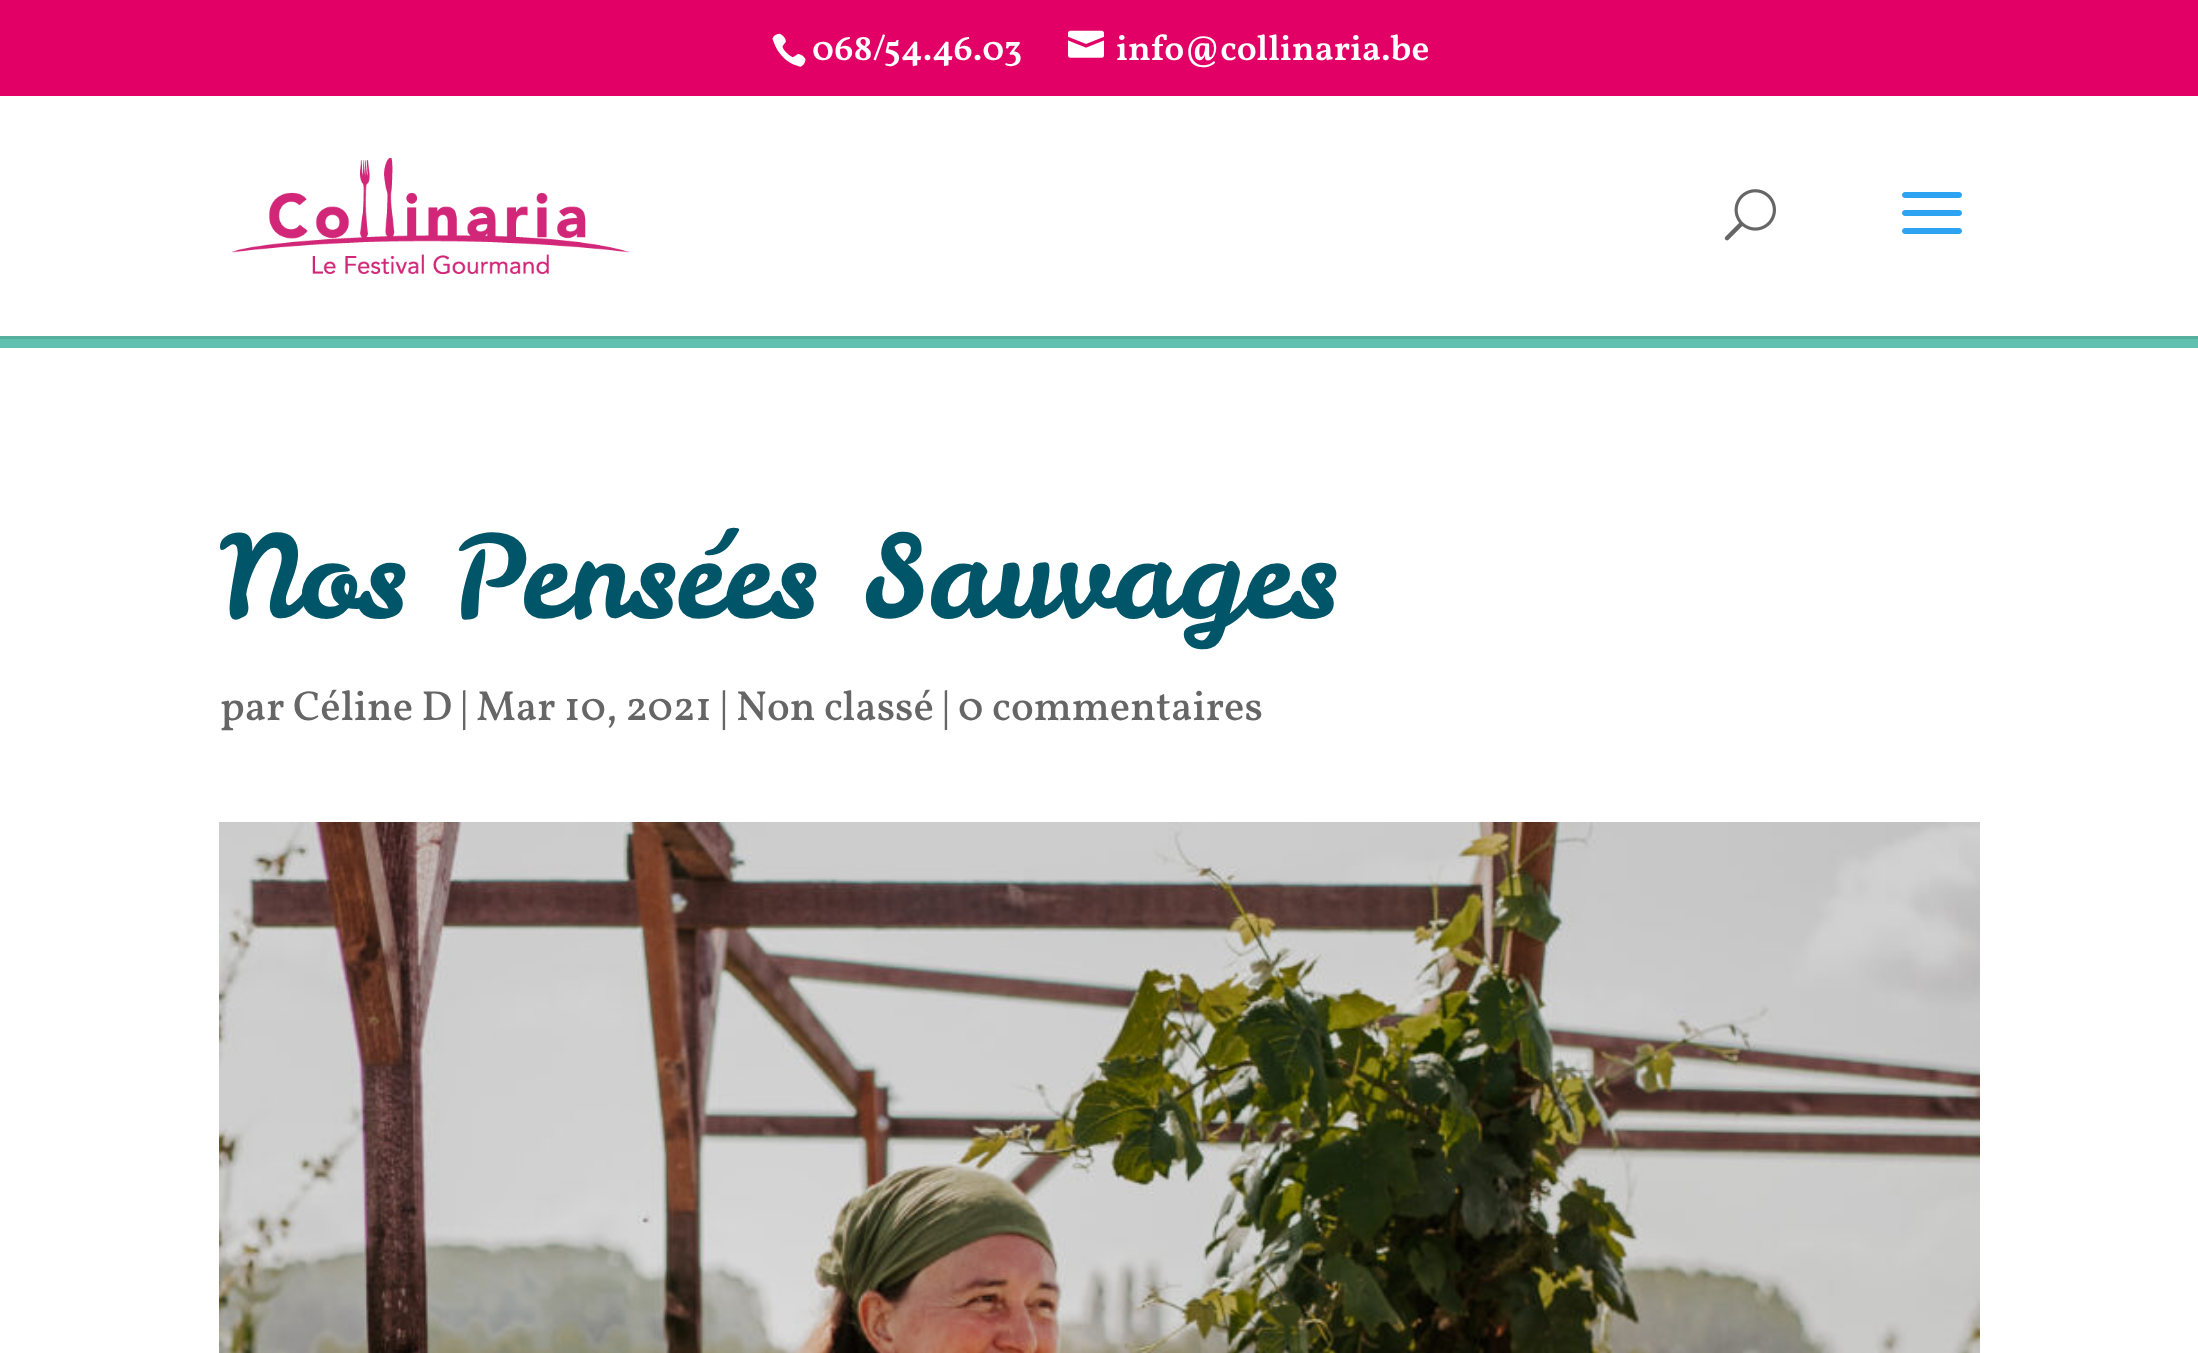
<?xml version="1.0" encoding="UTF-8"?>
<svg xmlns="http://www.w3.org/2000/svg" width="2198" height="1353">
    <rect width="100%" height="100%" fill="#60C1AE"/>
    <rect x="0" y="0" width="2198" height="96" fill="#E20066"/>
    <image x="772" y="33" width="34" height="34" href="img_01.png"/>
    <text x="812" y="60" font-family="Vollkorn" font-size="36" font-weight="600" fill="#FFFFFF">068/54.46.03</text>
    <image x="1068" y="30" width="36" height="28" href="img_02.png"/>
    <text x="1116" y="60" font-family="Vollkorn" font-size="36" font-weight="600" fill="#FFFFFF">info@collinaria.be</text>
    <rect x="0" y="336" width="2198" height="3" fill="#56AE9D"/>
    <rect x="0" y="96" width="2198" height="240" fill="#FFFFFF"/>
    <image x="231" y="157" width="399" height="118" href="img_03.png"/>
    <image x="1724" y="189" width="52" height="52" href="img_04.png"/>
    <image x="1902" y="192" width="60" height="42" href="img_05.png"/>
    <rect x="0" y="348" width="2198" height="1005" fill="#FFFFFF"/>
    <text x="220" y="618" font-family="Leckerli One" font-size="114" fill="#005568">Nos Pensées Sauvages</text>
    <text x="220" y="720" font-family="Vollkorn" font-size="42" font-weight="500" fill="#666666">par Céline D | Mar 10, 2021 | Non classé | 0 commentaires</text>
    <image x="219" y="822" width="1761" height="531" href="img_06.png"/>
</svg>
